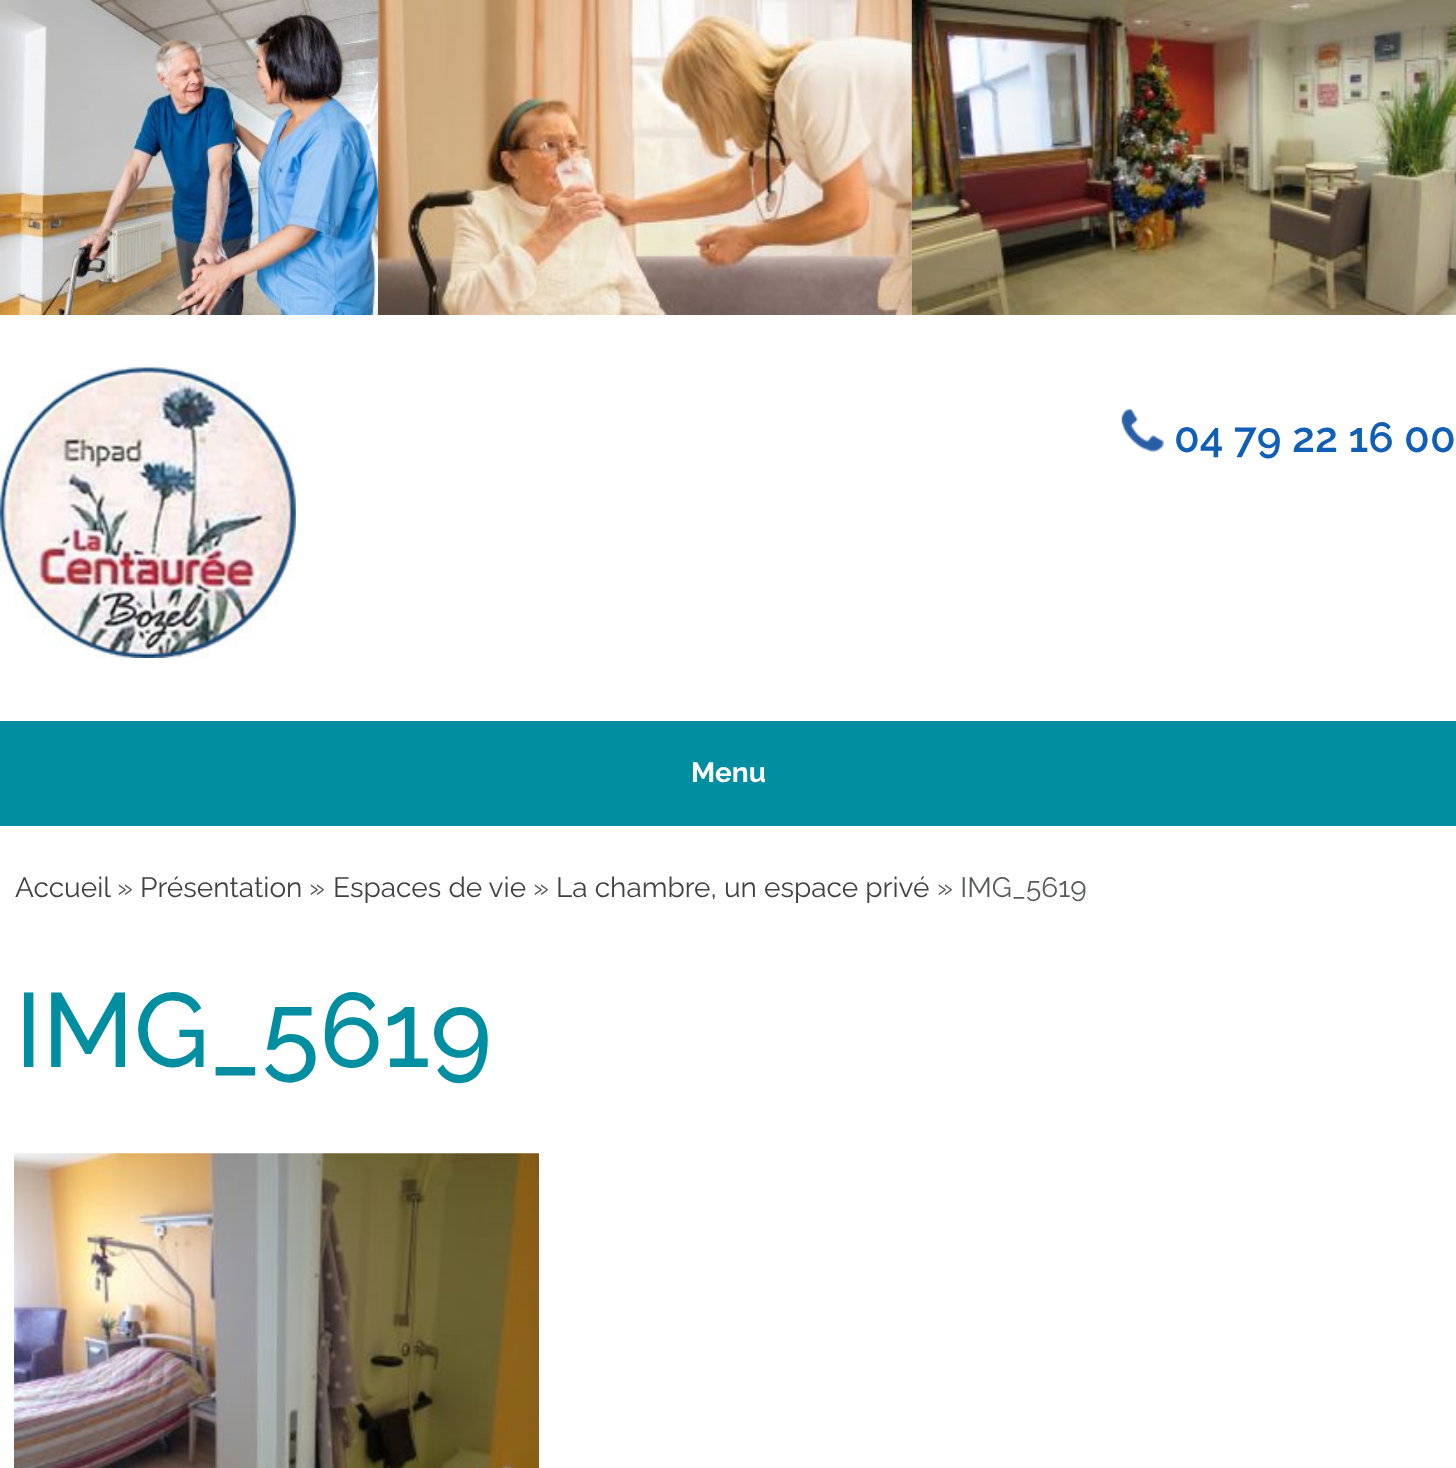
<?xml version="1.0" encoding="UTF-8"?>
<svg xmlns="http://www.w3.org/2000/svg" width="1456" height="1468">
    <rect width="100%" height="100%" fill="#FFFFFF"/>
    <image x="0" y="0" width="378" height="315" href="img_01.png"/>
    <image x="378" y="0" width="534" height="315" href="img_02.png"/>
    <image x="911" y="0" width="545" height="315" href="img_03.png"/>
    <image x="0" y="367" width="296" height="291" href="img_04.png"/>
    <image x="1121" y="409" width="43" height="43" href="img_05.png"/>
    <text x="1174" y="452" font-family="Raleway" font-size="42" font-weight="600" fill="#115EB5">04 79 22 16 00</text>
    <rect x="0" y="721" width="1456" height="105" fill="#018EA1"/>
    <text x="691" y="782" font-family="Raleway" font-size="28" font-weight="700" fill="#FFFFFF">Menu</text>
    <text x="15" y="897" font-family="Raleway" font-size="28" fill="#414042">Accueil</text>
    <text x="117" y="897" font-family="Raleway" font-size="28" fill="#58595B">»</text>
    <text x="140" y="897" font-family="Raleway" font-size="28" fill="#414042">Présentation</text>
    <text x="309" y="897" font-family="Raleway" font-size="28" fill="#58595B">»</text>
    <text x="333" y="897" font-family="Raleway" font-size="28" fill="#414042">Espaces de vie</text>
    <text x="533" y="897" font-family="Raleway" font-size="28" fill="#58595B">»</text>
    <text x="556" y="897" font-family="Raleway" font-size="28" fill="#414042">La chambre, un espace privé</text>
    <text x="937" y="897" font-family="Raleway" font-size="28" fill="#58595B">» IMG_5619</text>
    <text x="15" y="1067" font-family="Raleway" font-size="105" font-weight="500" fill="#018EA1">IMG_5619</text>
    <image x="14" y="1153" width="525" height="315" href="img_06.png"/>
</svg>
